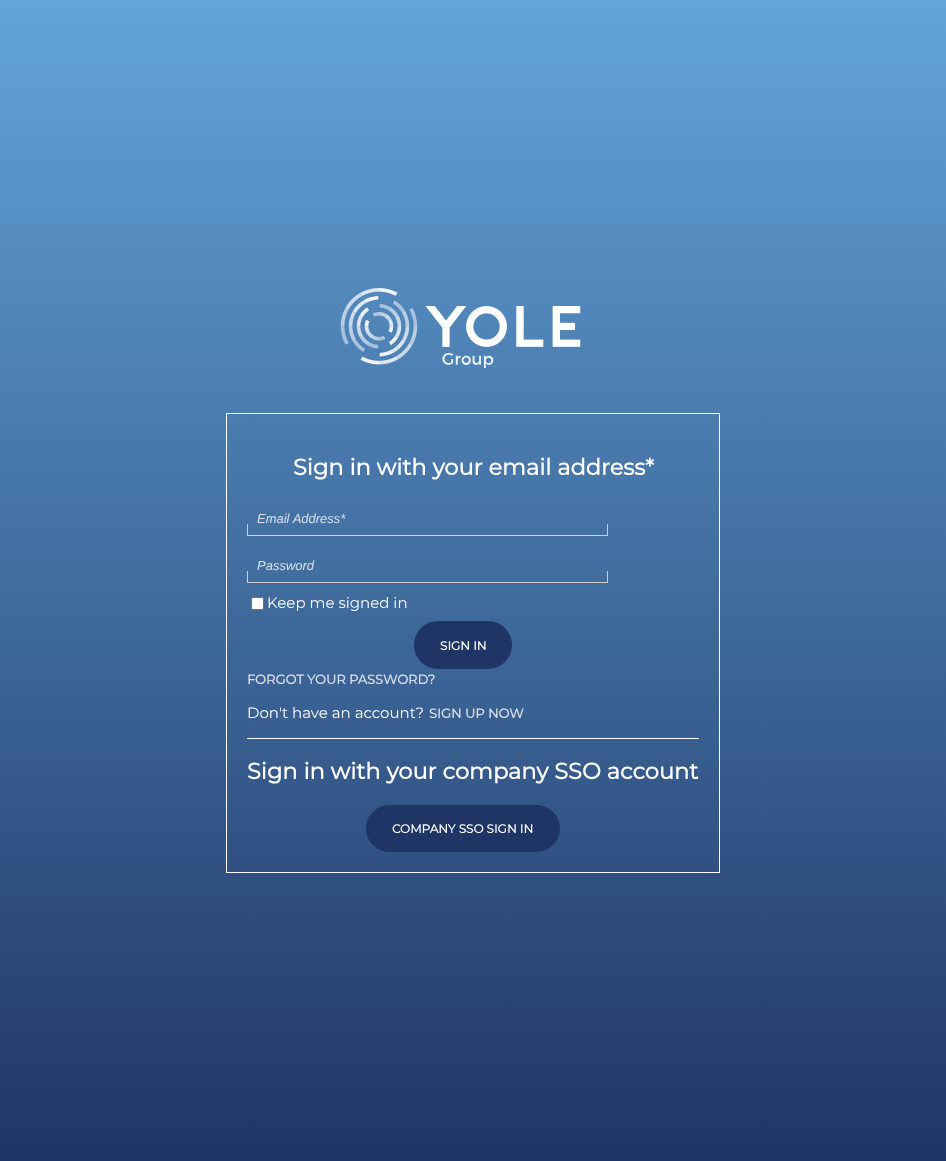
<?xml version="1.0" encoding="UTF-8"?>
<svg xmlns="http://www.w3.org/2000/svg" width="946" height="1161">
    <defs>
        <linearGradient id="g1" gradientUnits="userSpaceOnUse" x1="473" y1="0" x2="473" y2="1161"><stop offset="0" stop-color="#63A4D9"/><stop offset="1" stop-color="#1F3565"/></linearGradient>
    </defs>
    <rect width="100%" height="100%" fill="#FFFFFF"/>
    <rect x="0" y="0" width="946" height="1161" fill="url(#g1)"/>
    <image x="340" y="288" width="241" height="80" href="img_01.png"/>
    <rect x="226.5" y="413.5" width="493" height="459" fill="none" stroke="#FFFFFF"/>
    <text x="293" y="475" font-family="Montserrat" font-size="22.5" font-weight="700" fill="#FFFFFF">Sign in with your email address*</text>
    <rect x="607" y="524" width="1" height="12" fill="#CDD2DA"/>
    <rect x="247" y="535" width="361" height="1" fill="#CDD2DA"/>
    <rect x="247" y="524" width="1" height="12" fill="#CDD2DA"/>
    <text x="257" y="523" font-family="Liberation Sans" font-size="13" font-style="italic" fill="#D7E0EB">Email Address*</text>
    <rect x="607" y="571" width="1" height="12" fill="#CDD2DA"/>
    <rect x="247" y="582" width="361" height="1" fill="#CDD2DA"/>
    <rect x="247" y="571" width="1" height="12" fill="#CDD2DA"/>
    <text x="257" y="570" font-family="Liberation Sans" font-size="13" font-style="italic" fill="#D7E0EB">Password</text>
    <rect x="251.5" y="597.5" width="12" height="12" rx="1.5" fill="#FFFFFF" stroke="#767676"/>
    <text x="267" y="608" font-family="Montserrat" font-size="15" font-weight="100" fill="#FFFFFF">Keep me signed in</text>
    <rect x="414" y="621" width="98" height="48" rx="24" fill="#1F3565"/>
    <text x="440" y="650" font-family="Montserrat" font-size="12" font-weight="700" fill="#FFFFFF">SIGN IN</text>
    <text x="247" y="684" font-family="Montserrat" font-size="13" font-weight="700" fill="#D7E0EB">FORGOT YOUR PASSWORD?</text>
    <text x="247" y="718" font-family="Montserrat" font-size="15" font-weight="100" fill="#FFFFFF">Don't have an account?</text>
    <text x="429" y="718" font-family="Montserrat" font-size="13" font-weight="700" fill="#D7E0EB">SIGN UP NOW</text>
    <rect x="247" y="738" width="452" height="1" fill="#FFFFFF"/>
    <text x="247" y="779" font-family="Montserrat" font-size="22.5" font-weight="700" fill="#FFFFFF">Sign in with your company SSO account</text>
    <rect x="366" y="805" width="194" height="47" rx="23.5" fill="#1F3565"/>
    <text x="392" y="833" font-family="Montserrat" font-size="12" font-weight="700" fill="#FFFFFF">COMPANY SSO SIGN IN</text>
</svg>
